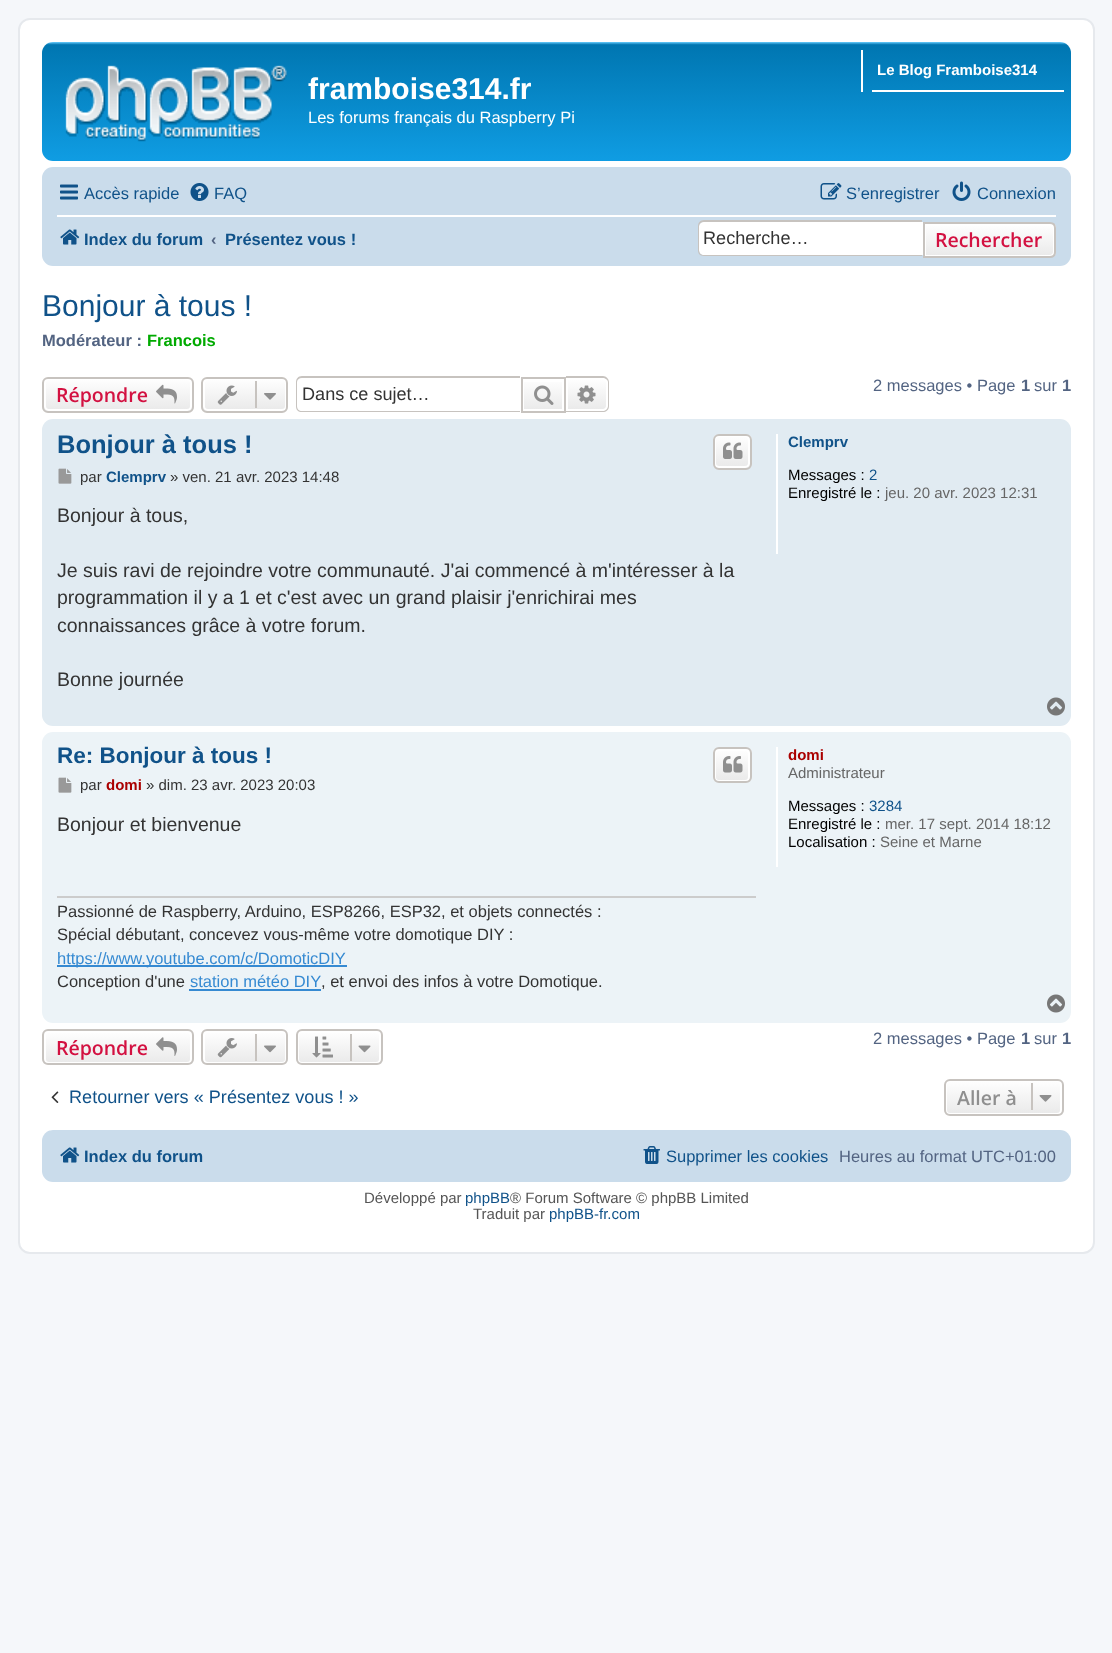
<?xml version="1.0" encoding="UTF-8"?>
<svg xmlns="http://www.w3.org/2000/svg" width="1112" height="1653">
    <defs>
        <linearGradient id="g1" gradientUnits="userSpaceOnUse" x1="557" y1="42" x2="557" y2="180"><stop offset="0" stop-color="#6ACEFF"/><stop offset="0.02" stop-color="#0076B1"/><stop offset="1" stop-color="#12A3EB"/></linearGradient>
        <clipPath id="clip1"><path d="M 923 222 H 1050 C 1053.5 222 1056 224.5 1056 228 V 252 C 1056 255.5 1053.5 258 1050 258 H 923 Z"/></clipPath>
        <linearGradient id="g2" gradientUnits="userSpaceOnUse" x1="989" y1="224" x2="989" y2="257"><stop offset="0" stop-color="#FFFFFF"/><stop offset="1" stop-color="#E9E9E9"/></linearGradient>
        <clipPath id="clip2"><rect x="42" y="377" width="152" height="36" rx="6"/></clipPath>
        <linearGradient id="g3" gradientUnits="userSpaceOnUse" x1="118" y1="378" x2="118" y2="411"><stop offset="0" stop-color="#FFFFFF"/><stop offset="1" stop-color="#E9E9E9"/></linearGradient>
        <clipPath id="clip3"><rect x="201" y="377" width="87" height="36" rx="6"/></clipPath>
        <linearGradient id="g4" gradientUnits="userSpaceOnUse" x1="245" y1="378" x2="245" y2="411"><stop offset="0" stop-color="#FFFFFF"/><stop offset="1" stop-color="#E9E9E9"/></linearGradient>
        <linearGradient id="g5" gradientUnits="userSpaceOnUse" x1="543" y1="378" x2="543" y2="411"><stop offset="0" stop-color="#FFFFFF"/><stop offset="1" stop-color="#E9E9E9"/></linearGradient>
        <linearGradient id="g6" gradientUnits="userSpaceOnUse" x1="587" y1="378" x2="587" y2="411"><stop offset="0" stop-color="#FFFFFF"/><stop offset="1" stop-color="#E9E9E9"/></linearGradient>
        <clipPath id="clip4"><rect x="713" y="434" width="39" height="36" rx="6"/></clipPath>
        <linearGradient id="g7" gradientUnits="userSpaceOnUse" x1="732" y1="435" x2="732" y2="468"><stop offset="0" stop-color="#FFFFFF"/><stop offset="1" stop-color="#E9E9E9"/></linearGradient>
        <clipPath id="clip5"><rect x="713" y="747" width="39" height="36" rx="6"/></clipPath>
        <linearGradient id="g8" gradientUnits="userSpaceOnUse" x1="732" y1="749" x2="732" y2="782"><stop offset="0" stop-color="#FFFFFF"/><stop offset="1" stop-color="#E9E9E9"/></linearGradient>
        <clipPath id="clip6"><rect x="42" y="1029" width="152" height="36" rx="6"/></clipPath>
        <linearGradient id="g9" gradientUnits="userSpaceOnUse" x1="118" y1="1031" x2="118" y2="1064"><stop offset="0" stop-color="#FFFFFF"/><stop offset="1" stop-color="#E9E9E9"/></linearGradient>
        <clipPath id="clip7"><rect x="201" y="1029" width="87" height="36" rx="6"/></clipPath>
        <linearGradient id="g10" gradientUnits="userSpaceOnUse" x1="245" y1="1031" x2="245" y2="1064"><stop offset="0" stop-color="#FFFFFF"/><stop offset="1" stop-color="#E9E9E9"/></linearGradient>
        <clipPath id="clip8"><rect x="296" y="1029" width="87" height="36" rx="6"/></clipPath>
        <linearGradient id="g11" gradientUnits="userSpaceOnUse" x1="339" y1="1031" x2="339" y2="1064"><stop offset="0" stop-color="#FFFFFF"/><stop offset="1" stop-color="#E9E9E9"/></linearGradient>
        <clipPath id="clip9"><rect x="944" y="1079" width="120" height="37" rx="6"/></clipPath>
        <linearGradient id="g12" gradientUnits="userSpaceOnUse" x1="1004" y1="1080" x2="1004" y2="1115"><stop offset="0" stop-color="#FFFFFF"/><stop offset="1" stop-color="#E9E9E9"/></linearGradient>
    </defs>
    <rect width="100%" height="100%" fill="#F5F7FA"/>
    <rect x="19" y="19" width="1075" height="1234" rx="11" fill="#FFFFFF" stroke="#E6E9ED" stroke-width="2"/>
    <rect x="42" y="42" width="1029" height="119" rx="11" fill="url(#g1)"/>
    <rect x="861" y="50" width="2" height="42" fill="#FFFFFF"/>
    <rect x="872" y="90" width="192" height="2" fill="#FFFFFF"/>
    <text x="877" y="75" font-family="Liberation Sans" font-size="15" font-weight="700" fill="#FFFFFF">Le Blog Framboise314</text>
    <image x="65" y="65" width="222" height="77" href="img_01.png"/>
    <text x="308" y="99" font-family="Liberation Sans" font-size="30" font-weight="700" fill="#FFFFFF">framboise314.fr</text>
    <text x="308" y="123" font-family="Liberation Sans" font-size="16.5" fill="#FFFFFF">Les forums français du Raspberry Pi</text>
    <rect x="42" y="167" width="1029" height="99" rx="11" fill="#CADCEB"/>
    <image x="60" y="184" width="18" height="16" href="img_02.png"/>
    <text x="84" y="199" font-family="Liberation Sans" font-size="16.5" fill="#105289">Accès rapide</text>
    <image x="190" y="183" width="19" height="18" href="img_03.png"/>
    <text x="214" y="199" font-family="Liberation Sans" font-size="16.5" fill="#105289">FAQ</text>
    <image x="820" y="183" width="22" height="17" href="img_04.png"/>
    <text x="846" y="199" font-family="Liberation Sans" font-size="16.5" fill="#105289">S’enregistrer</text>
    <image x="952" y="181" width="19" height="20" href="img_05.png"/>
    <text x="977" y="199" font-family="Liberation Sans" font-size="16.5" fill="#105289">Connexion</text>
    <rect x="57" y="215" width="999" height="2" fill="#FFFFFF"/>
    <image x="60" y="229" width="20" height="16" href="img_06.png"/>
    <text x="84" y="245" font-family="Liberation Sans" font-size="16.5" font-weight="700" fill="#105289">Index du forum</text>
    <text x="211" y="245" font-family="Liberation Sans" font-size="16.5" font-weight="700" fill="#536482">‹</text>
    <text x="225" y="245" font-family="Liberation Sans" font-size="16.5" font-weight="700" fill="#105289">Présentez vous !</text>
    <path d="M 704 222 H 923 V 255 H 704 C 701 255 699 253 699 250 V 227 C 699 224 701 222 704 222 Z" fill="#FFFFFF"/>
    <path d="M 704 220 H 922 V 256 H 704 C 700 256 698 254 698 250 V 226 C 698 223 700 220 704 220 Z M 704 222 H 922 V 255 H 704 C 701 255 699 253 699 250 V 226 C 699 224 701 222 704 222 Z" fill="#C7C3BF" fill-rule="evenodd"/>
    <text x="703" y="244" font-family="Liberation Sans" font-size="18.1" fill="#333333">Recherche…</text>
    <g clip-path="url(#clip1)">
        <rect x="926" y="224" width="130" height="33" fill="url(#g2)"/>
    </g>
    <path d="M 925 225 H 1050 C 1052 225 1054 227 1054 229 V 252 C 1054 254 1052 256 1050 256 H 925 Z" fill="none" stroke="#FFFFFF" stroke-width="2"/>
    <path d="M 924 223 H 1050 C 1053 223 1055 225 1055 228 V 252 C 1055 255 1053 257 1050 257 H 924 Z" fill="none" stroke="#C7C3BF" stroke-width="2"/>
    <text x="935" y="247" font-family="Open Sans" font-size="19.5" font-weight="600" fill="#D31141">Rechercher</text>
    <text x="42" y="316" font-family="Liberation Sans" font-size="30" fill="#105289">Bonjour à tous !</text>
    <text x="42" y="346" font-family="Liberation Sans" font-size="16.5" font-weight="700" fill="#536482">Modérateur :</text>
    <text x="147" y="346" font-family="Liberation Sans" font-size="16.5" font-weight="700" fill="#00AA00">Francois</text>
    <g clip-path="url(#clip2)">
        <rect x="42" y="378" width="152" height="33" fill="url(#g3)"/>
    </g>
    <rect x="45" y="379" width="146" height="31" rx="4" fill="none" stroke="#FFFFFF" stroke-width="2"/>
    <rect x="43" y="378" width="150" height="34" rx="5" fill="none" stroke="#C7C3BF" stroke-width="2"/>
    <text x="56" y="402" font-family="Open Sans" font-size="19.5" font-weight="600" fill="#D31141">Répondre</text>
    <image x="156" y="384" width="21" height="20" href="img_07.png"/>
    <g clip-path="url(#clip3)">
        <rect x="201" y="378" width="87" height="33" fill="url(#g4)"/>
    </g>
    <rect x="204" y="379" width="82" height="31" rx="4" fill="none" stroke="#FFFFFF" stroke-width="2"/>
    <rect x="202" y="378" width="85" height="34" rx="5" fill="none" stroke="#C7C3BF" stroke-width="2"/>
    <image x="217" y="385" width="20" height="20" href="img_08.png"/>
    <rect x="255" y="381" width="2" height="27" fill="#C7C3BF"/>
    <image x="264" y="393" width="12" height="7" href="img_09.png"/>
    <path d="M 302 376 H 520 V 412 H 302 C 298 412 296 410 296 406 V 382 C 296 379 298 376 302 376 Z M 302 378 H 520 V 411 H 302 C 299 411 297 409 297 406 V 382 C 297 380 299 378 302 378 Z" fill="#C7C3BF" fill-rule="evenodd"/>
    <text x="302" y="400" font-family="Liberation Sans" font-size="18.1" fill="#333333">Dans ce sujet…</text>
    <rect x="524" y="382" width="38" height="27" fill="url(#g5)"/>
    <rect x="522" y="378" width="43" height="34" fill="none" stroke="#C7C3BF" stroke-width="2"/>
    <image x="534" y="385" width="20" height="20" href="img_10.png"/>
    <path d="M 567 379 H 603 C 605 379 607 381 607 383 V 406 C 607 408 605 410 603 410 H 567 Z" fill="url(#g6)" stroke="#FFFFFF" stroke-width="2"/>
    <path d="M 566 376 H 603 C 606 376 609 379 609 382 V 406 C 609 410 606 412 603 412 H 566 Z M 566 378 H 603 C 605 378 608 380 608 382 V 406 C 608 409 605 411 603 411 H 566 Z" fill="#C7C3BF" fill-rule="evenodd"/>
    <image x="577" y="385" width="19" height="19" href="img_11.png"/>
    <text x="873" y="391" font-family="Liberation Sans" font-size="16.5" fill="#536482">2 messages • Page</text>
    <text x="1021" y="391" font-family="Liberation Sans" font-size="16.5" font-weight="700" fill="#536482">1</text>
    <text x="1034" y="391" font-family="Liberation Sans" font-size="16.5" fill="#536482">sur</text>
    <text x="1062" y="391" font-family="Liberation Sans" font-size="16.5" font-weight="700" fill="#536482">1</text>
    <rect x="42" y="419" width="1029" height="307" rx="11" fill="#E1EBF2"/>
    <text x="57" y="453" font-family="Liberation Sans" font-size="25.5" font-weight="700" fill="#105289">Bonjour à tous !</text>
    <g clip-path="url(#clip4)">
        <rect x="713" y="435" width="39" height="33" fill="url(#g7)"/>
    </g>
    <rect x="715" y="436" width="34" height="31" rx="4" fill="none" stroke="#FFFFFF" stroke-width="2"/>
    <rect x="714" y="435" width="37" height="34" rx="5" fill="none" stroke="#C7C3BF" stroke-width="2"/>
    <image x="723" y="442" width="20" height="17" href="img_12.png"/>
    <image x="58" y="468" width="14" height="16" href="img_13.png"/>
    <text x="80" y="482" font-family="Liberation Sans" font-size="15" fill="#333333">par</text>
    <text x="106" y="482" font-family="Liberation Sans" font-size="15" font-weight="700" fill="#105289">Clemprv</text>
    <text x="170" y="482" font-family="Liberation Sans" font-size="15" fill="#333333">» ven. 21 avr. 2023 14:48</text>
    <text x="57" y="522" font-family="Liberation Sans" font-size="19.5" fill="#333333">Bonjour à tous,</text>
    <text font-family="Liberation Sans" font-size="19.5" fill="#333333">
        <tspan x="57" y="577">Je suis ravi de rejoindre votre communauté. J'ai commencé à m'intéresser à la</tspan>
        <tspan x="57" y="604">programmation il y a 1 et c'est avec un grand plaisir j'enrichirai mes</tspan>
        <tspan x="57" y="632">connaissances grâce à votre forum.</tspan>
    </text>
    <text x="57" y="686" font-family="Liberation Sans" font-size="19.5" fill="#333333">Bonne journée</text>
    <rect x="776" y="434" width="2" height="120" fill="#FFFFFF"/>
    <text x="788" y="447" font-family="Liberation Sans" font-size="15" font-weight="700" fill="#105289">Clemprv</text>
    <text x="788" y="480" font-family="Liberation Sans" font-size="15" fill="#000000">Messages :</text>
    <text x="869" y="480" font-family="Liberation Sans" font-size="15" fill="#105289">2</text>
    <text x="788" y="498" font-family="Liberation Sans" font-size="15" fill="#000000">Enregistré le :</text>
    <text x="885" y="498" font-family="Liberation Sans" font-size="15" fill="#666666">jeu. 20 avr. 2023 12:31</text>
    <image x="1047" y="697" width="18" height="19" href="img_14.png"/>
    <rect x="42" y="732" width="1029" height="291" rx="11" fill="#ECF3F7"/>
    <text x="57" y="763" font-family="Liberation Sans" font-size="22.5" font-weight="700" fill="#105289">Re: Bonjour à tous !</text>
    <g clip-path="url(#clip5)">
        <rect x="713" y="749" width="39" height="33" fill="url(#g8)"/>
    </g>
    <rect x="715" y="750" width="34" height="31" rx="4" fill="none" stroke="#FFFFFF" stroke-width="2"/>
    <rect x="714" y="748" width="37" height="34" rx="5" fill="none" stroke="#C7C3BF" stroke-width="2"/>
    <image x="723" y="756" width="20" height="17" href="img_15.png"/>
    <image x="58" y="777" width="14" height="16" href="img_16.png"/>
    <text x="80" y="790" font-family="Liberation Sans" font-size="15" fill="#333333">par</text>
    <text x="106" y="790" font-family="Liberation Sans" font-size="15" font-weight="700" fill="#AA0000">domi</text>
    <text x="146" y="790" font-family="Liberation Sans" font-size="15" fill="#333333">» dim. 23 avr. 2023 20:03</text>
    <text x="57" y="831" font-family="Liberation Sans" font-size="19.5" fill="#333333">Bonjour et bienvenue</text>
    <rect x="57" y="896" width="699" height="2" fill="#CCCCCC"/>
    <text font-family="Liberation Sans" font-size="16.5" fill="#333333">
        <tspan x="57" y="917">Passionné de Raspberry, Arduino, ESP8266, ESP32, et objets connectés :</tspan>
        <tspan x="57" y="940">Spécial débutant, concevez vous-même votre domotique DIY :</tspan>
    </text>
    <rect x="57" y="965" width="290" height="2" fill="#368AD2"/>
    <text x="57" y="964" font-family="Liberation Sans" font-size="16.5" fill="#368AD2">https://www.youtube.com/c/DomoticDIY</text>
    <text x="57" y="987" font-family="Liberation Sans" font-size="16.5" fill="#333333">Conception d'une</text>
    <text x="190" y="987" font-family="Liberation Sans" font-size="16.5" fill="#368AD2">station météo DIY</text>
    <rect x="189" y="989" width="132" height="2" fill="#368AD2"/>
    <text x="321" y="987" font-family="Liberation Sans" font-size="16.5" fill="#333333">, et envoi des infos à votre Domotique.</text>
    <rect x="776" y="747" width="2" height="120" fill="#FFFFFF"/>
    <text x="788" y="760" font-family="Liberation Sans" font-size="15" font-weight="700" fill="#AA0000">domi</text>
    <text x="788" y="778" font-family="Liberation Sans" font-size="15" fill="#666666">Administrateur</text>
    <text x="788" y="811" font-family="Liberation Sans" font-size="15" fill="#000000">Messages :</text>
    <text x="869" y="811" font-family="Liberation Sans" font-size="15" fill="#105289">3284</text>
    <text x="788" y="829" font-family="Liberation Sans" font-size="15" fill="#000000">Enregistré le :</text>
    <text x="885" y="829" font-family="Liberation Sans" font-size="15" fill="#666666">mer. 17 sept. 2014 18:12</text>
    <text x="788" y="847" font-family="Liberation Sans" font-size="15" fill="#000000">Localisation :</text>
    <text x="880" y="847" font-family="Liberation Sans" font-size="15" fill="#666666">Seine et Marne</text>
    <image x="1047" y="994" width="18" height="19" href="img_17.png"/>
    <g clip-path="url(#clip6)">
        <rect x="42" y="1031" width="152" height="33" fill="url(#g9)"/>
    </g>
    <rect x="45" y="1032" width="146" height="31" rx="4" fill="none" stroke="#FFFFFF" stroke-width="2"/>
    <rect x="43" y="1030" width="150" height="34" rx="5" fill="none" stroke="#C7C3BF" stroke-width="2"/>
    <text x="56" y="1055" font-family="Open Sans" font-size="19.5" font-weight="600" fill="#D31141">Répondre</text>
    <image x="156" y="1037" width="21" height="19" href="img_18.png"/>
    <g clip-path="url(#clip7)">
        <rect x="201" y="1031" width="87" height="33" fill="url(#g10)"/>
    </g>
    <rect x="204" y="1032" width="82" height="31" rx="4" fill="none" stroke="#FFFFFF" stroke-width="2"/>
    <rect x="202" y="1030" width="85" height="34" rx="5" fill="none" stroke="#C7C3BF" stroke-width="2"/>
    <image x="217" y="1038" width="20" height="20" href="img_19.png"/>
    <rect x="255" y="1034" width="2" height="27" fill="#C7C3BF"/>
    <image x="264" y="1045" width="12" height="8" href="img_20.png"/>
    <g clip-path="url(#clip8)">
        <rect x="296" y="1031" width="87" height="33" fill="url(#g11)"/>
    </g>
    <rect x="298" y="1032" width="82" height="31" rx="4" fill="none" stroke="#FFFFFF" stroke-width="2"/>
    <rect x="297" y="1030" width="85" height="34" rx="5" fill="none" stroke="#C7C3BF" stroke-width="2"/>
    <image x="312" y="1036" width="21" height="22" href="img_21.png"/>
    <rect x="350" y="1034" width="2" height="27" fill="#C7C3BF"/>
    <image x="358" y="1045" width="13" height="8" href="img_22.png"/>
    <text x="873" y="1044" font-family="Liberation Sans" font-size="16.5" fill="#536482">2 messages • Page</text>
    <text x="1021" y="1044" font-family="Liberation Sans" font-size="16.5" font-weight="700" fill="#536482">1</text>
    <text x="1034" y="1044" font-family="Liberation Sans" font-size="16.5" fill="#536482">sur</text>
    <text x="1062" y="1044" font-family="Liberation Sans" font-size="16.5" font-weight="700" fill="#536482">1</text>
    <image x="51" y="1091" width="8" height="12" href="img_23.png"/>
    <text x="69" y="1103" font-family="Liberation Sans" font-size="18.1" fill="#105289">Retourner vers « Présentez vous ! »</text>
    <g clip-path="url(#clip9)">
        <rect x="944" y="1080" width="120" height="35" fill="url(#g12)"/>
    </g>
    <rect x="946" y="1081" width="115" height="33" rx="4" fill="none" stroke="#FFFFFF" stroke-width="2"/>
    <rect x="945" y="1080" width="118" height="35" rx="5" fill="none" stroke="#C7C3BF" stroke-width="2"/>
    <text x="957" y="1105" font-family="Open Sans" font-size="19.5" font-weight="600" fill="#8F8F8F">Aller à</text>
    <rect x="1031" y="1083" width="2" height="27" fill="#C7C3BF"/>
    <image x="1039" y="1095" width="13" height="7" href="img_24.png"/>
    <rect x="42" y="1130" width="1029" height="52" rx="11" fill="#CADCEB"/>
    <image x="60" y="1147" width="20" height="16" href="img_06.png"/>
    <text x="84" y="1162" font-family="Liberation Sans" font-size="16.5" font-weight="700" fill="#105289">Index du forum</text>
    <image x="643" y="1146" width="17" height="18" href="img_25.png"/>
    <text x="666" y="1162" font-family="Liberation Sans" font-size="16.5" fill="#105289">Supprimer les cookies</text>
    <text x="839" y="1162" font-family="Liberation Sans" font-size="16.5" fill="#536482">Heures au format UTC+01:00</text>
    <text x="364" y="1203" font-family="Liberation Sans" font-size="15" fill="#555555">Développé par</text>
    <text x="465" y="1203" font-family="Liberation Sans" font-size="15" fill="#105289">phpBB</text>
    <text x="510" y="1203" font-family="Liberation Sans" font-size="15" fill="#555555">® Forum Software © phpBB Limited</text>
    <text x="473" y="1219" font-family="Liberation Sans" font-size="15" fill="#555555">Traduit par</text>
    <text x="549" y="1219" font-family="Liberation Sans" font-size="15" fill="#105289">phpBB-fr.com</text>
</svg>
